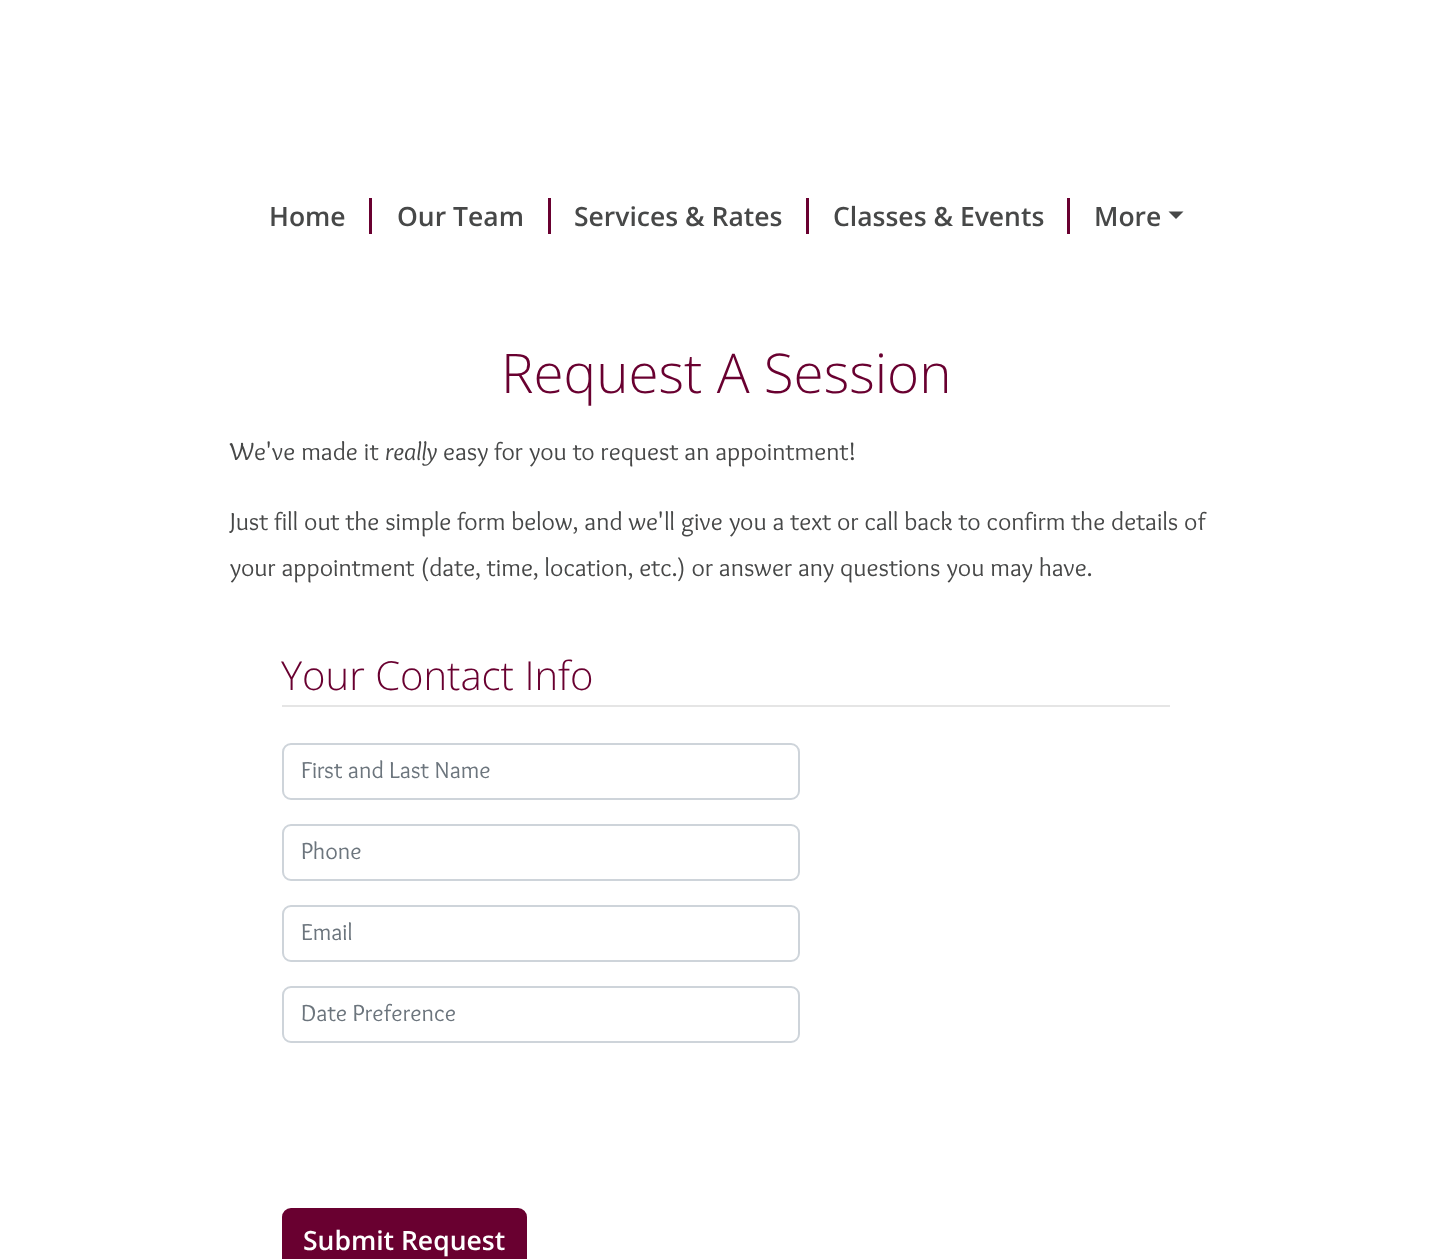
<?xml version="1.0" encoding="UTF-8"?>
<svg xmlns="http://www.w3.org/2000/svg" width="1451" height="1259">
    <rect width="100%" height="100%" fill="#FFFFFF"/>
    <text x="269" y="226" font-family="Open Sans" font-size="26.5" font-weight="600" fill="#474848">Home</text>
    <rect x="369" y="198" width="3" height="36" fill="#690030"/>
    <text x="397" y="226" font-family="Open Sans" font-size="26.5" font-weight="600" fill="#474848">Our Team</text>
    <rect x="548" y="198" width="3" height="36" fill="#690030"/>
    <text x="574" y="226" font-family="Open Sans" font-size="26.5" font-weight="600" fill="#474848">Services &amp; Rates</text>
    <rect x="806" y="198" width="3" height="36" fill="#690030"/>
    <text x="833" y="226" font-family="Open Sans" font-size="26.5" font-weight="600" fill="#474848">Classes &amp; Events</text>
    <rect x="1067" y="198" width="3" height="36" fill="#690030"/>
    <text x="1094" y="226" font-family="Open Sans" font-size="26.5" font-weight="600" fill="#474848">More</text>
    <path d="M 1168.5 211.5 H 1183.5 L 1176 219 Z" fill="#474848"/>
    <text x="501" y="393" font-family="Open Sans" font-size="54.75" font-weight="300" fill="#690030">Request A Session</text>
    <text x="230" y="460" font-family="Overlock" font-size="25.5" fill="#474848">We've made it</text>
    <text x="385" y="460" font-family="Overlock" font-size="25.5" font-style="italic" fill="#474848">really</text>
    <text x="443" y="460" font-family="Overlock" font-size="25.5" fill="#474848">easy for you to request an appointment!</text>
    <text font-family="Overlock" font-size="25.5" fill="#474848">
        <tspan x="230" y="530">Just fill out the simple form below, and we'll give you a text or call back to confirm the details of</tspan>
        <tspan x="230" y="576">your appointment (date, time, location, etc.) or answer any questions you may have.</tspan>
    </text>
    <rect x="282" y="705" width="888" height="2" fill="#E5E5E5"/>
    <text x="281" y="690" font-family="Open Sans" font-size="40" font-weight="300" fill="#690030">Your Contact Info</text>
    <rect x="283" y="744" width="516" height="55" rx="8" fill="none" stroke="#CED4DA" stroke-width="2"/>
    <text x="301" y="778" font-family="Overlock" font-size="24" fill="#6C757D">First and Last Name</text>
    <rect x="283" y="825" width="516" height="55" rx="8" fill="none" stroke="#CED4DA" stroke-width="2"/>
    <text x="301" y="859" font-family="Overlock" font-size="24" fill="#6C757D">Phone</text>
    <rect x="283" y="906" width="516" height="55" rx="8" fill="none" stroke="#CED4DA" stroke-width="2"/>
    <text x="301" y="940" font-family="Overlock" font-size="24" fill="#6C757D">Email</text>
    <rect x="283" y="987" width="516" height="55" rx="8" fill="none" stroke="#CED4DA" stroke-width="2"/>
    <text x="301" y="1021" font-family="Overlock" font-size="24" fill="#6C757D">Date Preference</text>
    <rect x="283" y="1209" width="243" height="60" rx="8" fill="#690030" stroke="#690030" stroke-width="2"/>
    <text x="303" y="1250" font-family="Open Sans" font-size="26.5" font-weight="600" fill="#FFFFFF">Submit Request</text>
</svg>
